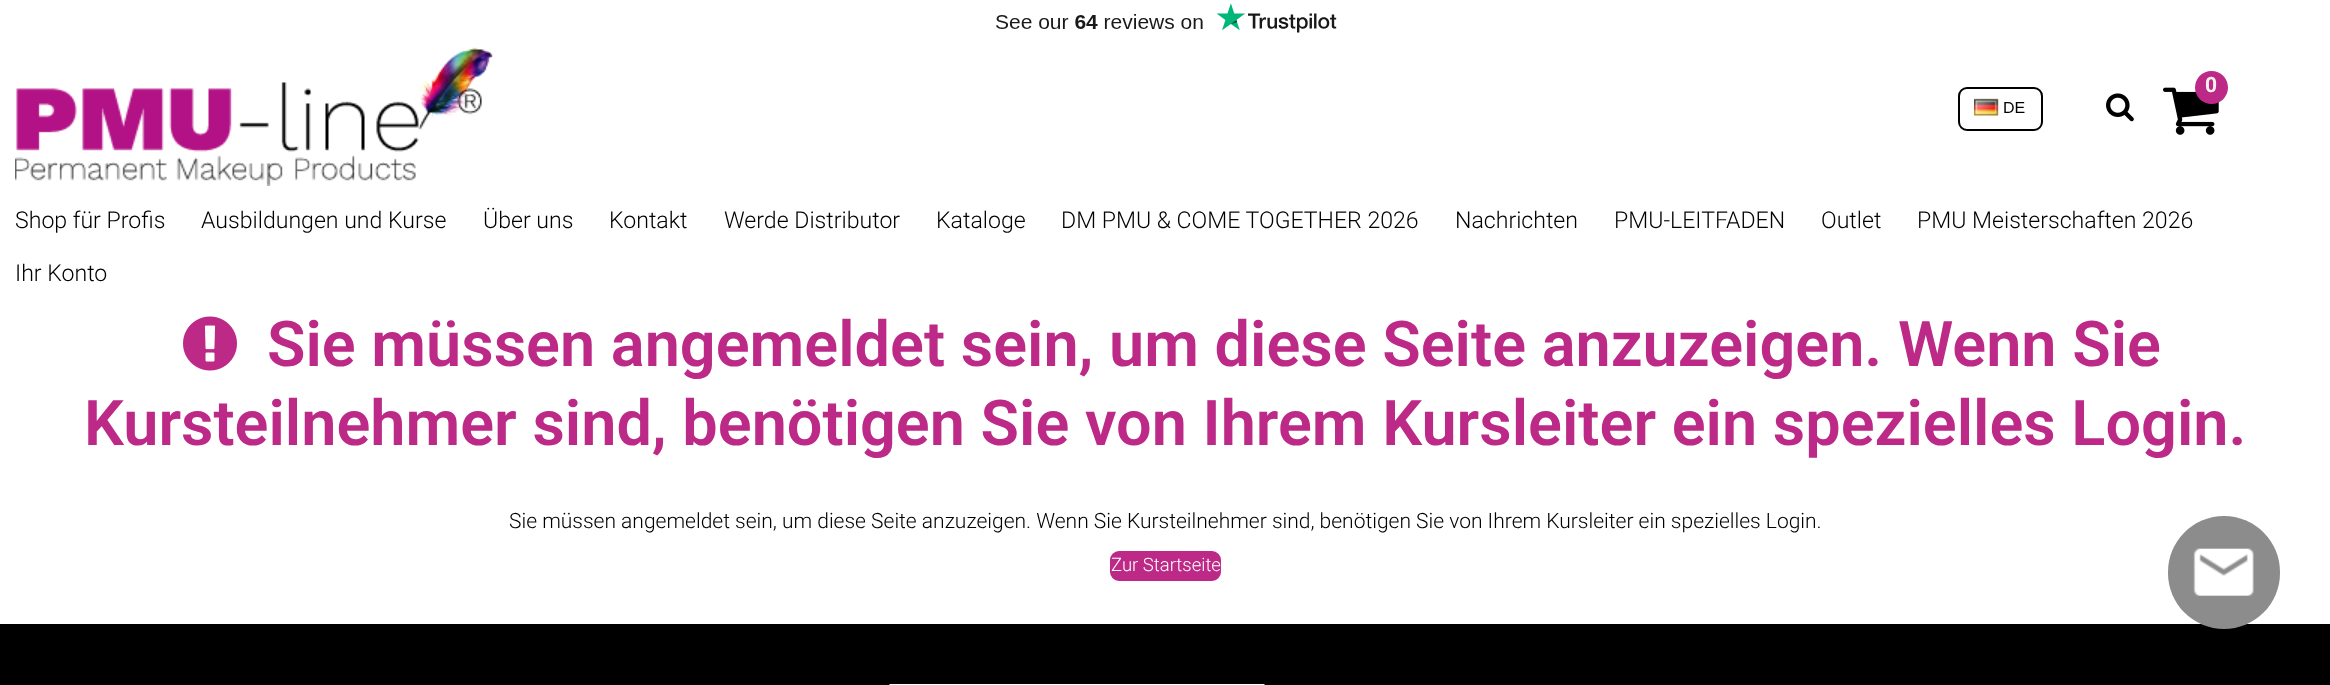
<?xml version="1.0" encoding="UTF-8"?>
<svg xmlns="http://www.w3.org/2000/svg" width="2330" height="685">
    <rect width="100%" height="100%" fill="#FFFFFF"/>
    <image x="996" y="3" width="341" height="30" href="img_01.png"/>
    <image x="15" y="47" width="478" height="139" href="img_02.png"/>
    <image x="2163" y="87" width="56" height="48" href="img_03.png"/>
    <circle cx="2211.5" cy="87.5" r="16.5" fill="#BC2986"/>
    <text x="2205" y="92" font-family="Roboto" font-size="21" font-weight="700" fill="#F8F1EA">0</text>
    <rect x="1959" y="88" width="83" height="42" rx="8" fill="none" stroke="#000000" stroke-width="2"/>
    <image x="1974" y="98" width="25" height="18" href="img_04.png"/>
    <text x="2003" y="113" font-family="Liberation Sans" font-size="16" fill="#000000">DE</text>
    <image x="2106" y="93" width="28" height="29" href="img_05.png"/>
    <text x="15" y="228" font-family="Roboto" font-size="23.1" font-weight="300" fill="#000000">Shop für Profis</text>
    <text x="201" y="228" font-family="Roboto" font-size="23.1" font-weight="300" fill="#000000">Ausbildungen und Kurse</text>
    <text x="483" y="228" font-family="Roboto" font-size="23.1" font-weight="300" fill="#000000">Über uns</text>
    <text x="609" y="228" font-family="Roboto" font-size="23.1" font-weight="300" fill="#000000">Kontakt</text>
    <text x="724" y="228" font-family="Roboto" font-size="23.1" font-weight="300" fill="#000000">Werde Distributor</text>
    <text x="936" y="228" font-family="Roboto" font-size="23.1" font-weight="300" fill="#000000">Kataloge</text>
    <text x="1061" y="228" font-family="Roboto" font-size="23.1" font-weight="300" fill="#000000">DM PMU &amp; COME TOGETHER 2026</text>
    <text x="1455" y="228" font-family="Roboto" font-size="23.1" font-weight="300" fill="#000000">Nachrichten</text>
    <text x="1614" y="228" font-family="Roboto" font-size="23.1" font-weight="300" fill="#000000">PMU-LEITFADEN</text>
    <text x="1821" y="228" font-family="Roboto" font-size="23.1" font-weight="300" fill="#000000">Outlet</text>
    <text x="1917" y="228" font-family="Roboto" font-size="23.1" font-weight="300" fill="#000000">PMU Meisterschaften 2026</text>
    <text x="15" y="281" font-family="Roboto" font-size="23.1" font-weight="300" fill="#000000">Ihr Konto</text>
    <image x="183" y="316" width="54" height="55" href="img_06.png"/>
    <text x="267" y="366" font-family="Roboto" font-size="63" font-weight="600" fill="#BC2986">Sie müssen angemeldet sein, um diese Seite anzuzeigen. Wenn Sie</text>
    <text x="84" y="445" font-family="Roboto" font-size="63" font-weight="600" fill="#BC2986">Kursteilnehmer sind, benötigen Sie von Ihrem Kursleiter ein spezielles Login.</text>
    <text x="509" y="528" font-family="Roboto" font-size="21" font-weight="300" fill="#000000">Sie müssen angemeldet sein, um diese Seite anzuzeigen. Wenn Sie Kursteilnehmer sind, benötigen Sie von Ihrem Kursleiter ein spezielles Login.</text>
    <rect x="1111" y="552" width="109" height="28" rx="8" fill="#BC2986" stroke="#BC2986" stroke-width="2"/>
    <text x="1111" y="571" font-family="Roboto" font-size="18.5" font-weight="300" fill="#FFFFFF">Zur Startseite</text>
    <rect x="0" y="624" width="2330" height="61" fill="#000000"/>
    <rect x="2168" y="516" width="112" height="113" rx="56" fill="#8C8C8C"/>
    <image x="2193" y="548" width="61" height="48" href="img_07.png"/>
    <image x="889" y="684" width="376" height="1" href="img_08.png"/>
</svg>
